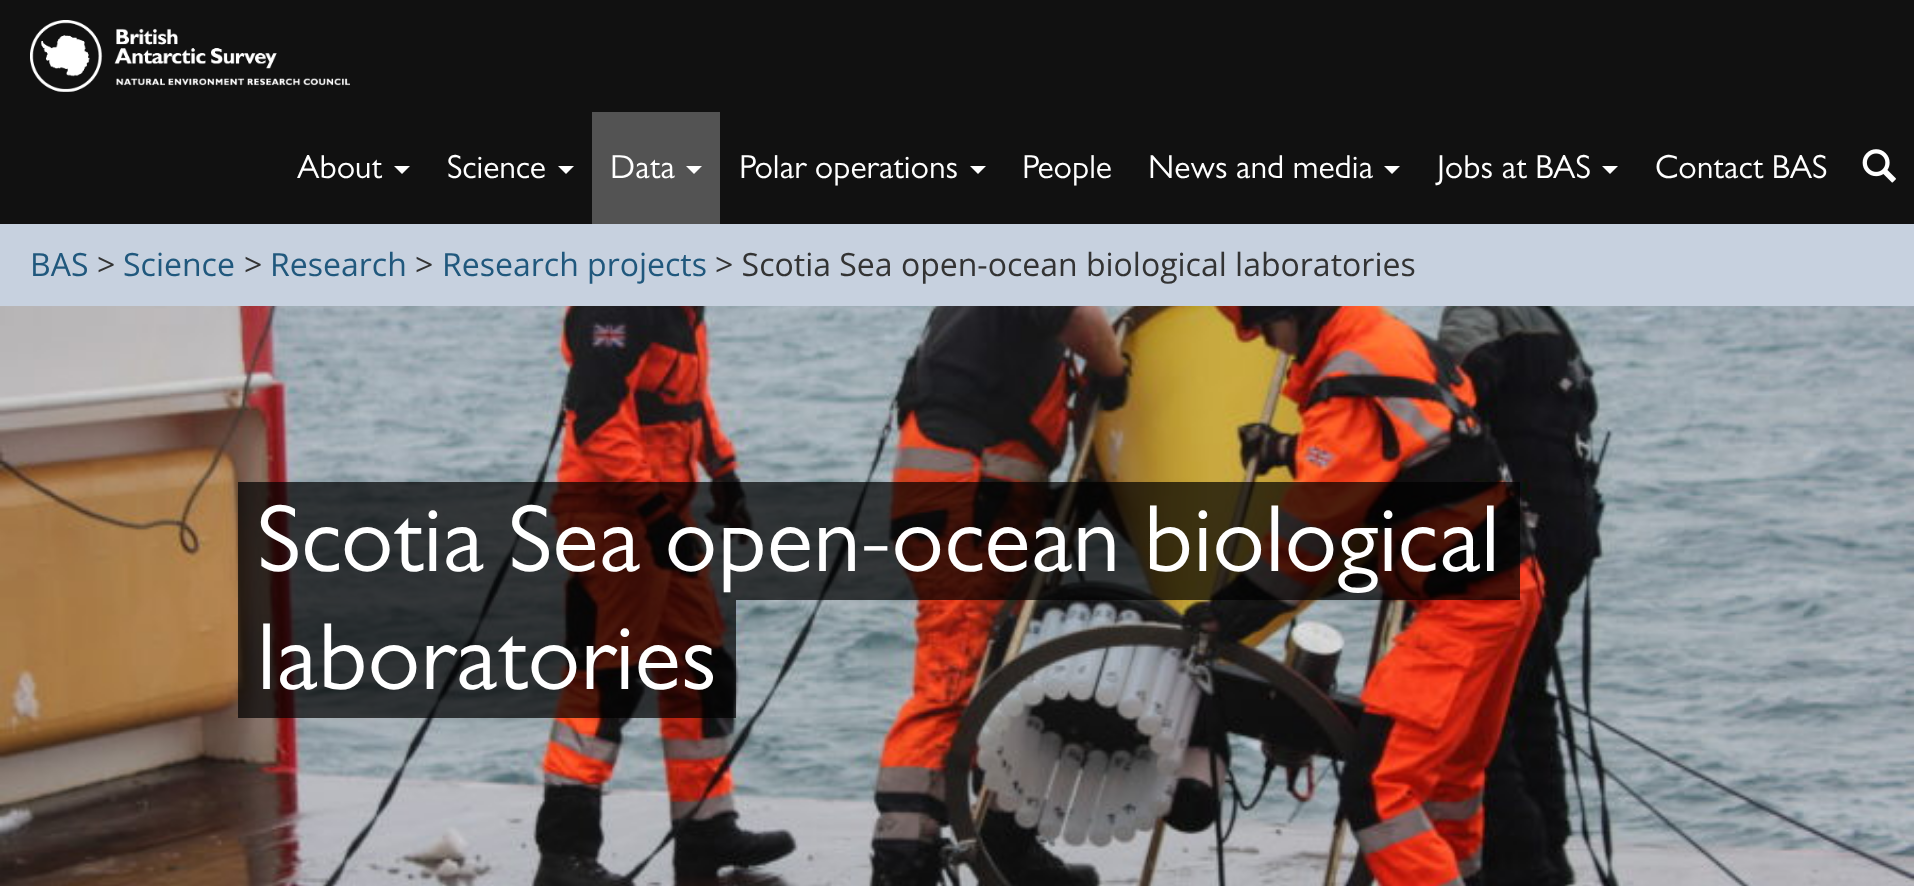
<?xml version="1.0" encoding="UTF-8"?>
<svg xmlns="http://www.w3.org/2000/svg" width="1914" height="886">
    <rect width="100%" height="100%" fill="#C7D1DF"/>
    <rect x="0" y="0" width="1914" height="224" fill="#111111"/>
    <image x="30" y="20" width="320" height="72" href="img_01.png"/>
    <text x="297" y="178" font-family="Gill Sans" font-size="33.5" fill="#FFFFFF">About</text>
    <path d="M 394 166 H 410 L 402 174 Z" fill="#FFFFFF"/>
    <text x="447" y="178" font-family="Gill Sans" font-size="33.5" fill="#FFFFFF">Science</text>
    <path d="M 558 166 H 574 L 566 174 Z" fill="#FFFFFF"/>
    <rect x="592" y="112" width="128" height="112" fill="#535353"/>
    <text x="610" y="178" font-family="Gill Sans" font-size="33.5" fill="#FFFFFF">Data</text>
    <path d="M 686 166 H 702 L 694 174 Z" fill="#FFFFFF"/>
    <text x="739" y="178" font-family="Gill Sans" font-size="33.5" fill="#FFFFFF">Polar operations</text>
    <path d="M 970 166 H 986 L 978 174 Z" fill="#FFFFFF"/>
    <text x="1022" y="178" font-family="Gill Sans" font-size="33.5" fill="#FFFFFF">People</text>
    <text x="1148" y="178" font-family="Gill Sans" font-size="33.5" fill="#FFFFFF">News and media</text>
    <path d="M 1384 166 H 1400 L 1392 174 Z" fill="#FFFFFF"/>
    <text x="1437" y="178" font-family="Gill Sans" font-size="33.5" fill="#FFFFFF">Jobs at BAS</text>
    <path d="M 1602 166 H 1618 L 1610 174 Z" fill="#FFFFFF"/>
    <text x="1655" y="178" font-family="Gill Sans" font-size="33.5" fill="#FFFFFF">Contact BAS</text>
    <image x="1862" y="149" width="34" height="34" href="img_02.png"/>
    <text x="30" y="276" font-family="Open Sans" font-size="32" fill="#20587D">BAS</text>
    <text x="97" y="276" font-family="Open Sans" font-size="32" fill="#333333">&gt;</text>
    <text x="123" y="276" font-family="Open Sans" font-size="32" fill="#20587D">Science</text>
    <text x="244" y="276" font-family="Open Sans" font-size="32" fill="#333333">&gt;</text>
    <text x="270" y="276" font-family="Open Sans" font-size="32" fill="#20587D">Research</text>
    <text x="415" y="276" font-family="Open Sans" font-size="32" fill="#333333">&gt;</text>
    <text x="442" y="276" font-family="Open Sans" font-size="32" fill="#20587D">Research projects</text>
    <text x="715" y="276" font-family="Open Sans" font-size="32" fill="#333333">&gt; Scotia Sea open-ocean biological laboratories</text>
    <image x="0" y="306" width="1914" height="580" href="img_03.png"/>
    <rect x="258" y="482" width="1242" height="118" fill="#000000" fill-opacity="0.7"/>
    <text x="257" y="571" font-family="Gill Sans" font-size="96" fill="#FFFFFF">Scotia Sea open-ocean biological</text>
    <rect x="238" y="482" width="20" height="118" fill="#000000" fill-opacity="0.7"/>
    <rect x="1500" y="482" width="20" height="118" fill="#000000" fill-opacity="0.7"/>
    <rect x="258" y="600" width="458" height="118" fill="#000000" fill-opacity="0.7"/>
    <text x="257" y="689" font-family="Gill Sans" font-size="96" fill="#FFFFFF">laboratories</text>
    <rect x="238" y="600" width="20" height="118" fill="#000000" fill-opacity="0.7"/>
    <rect x="716" y="600" width="20" height="118" fill="#000000" fill-opacity="0.7"/>
</svg>
